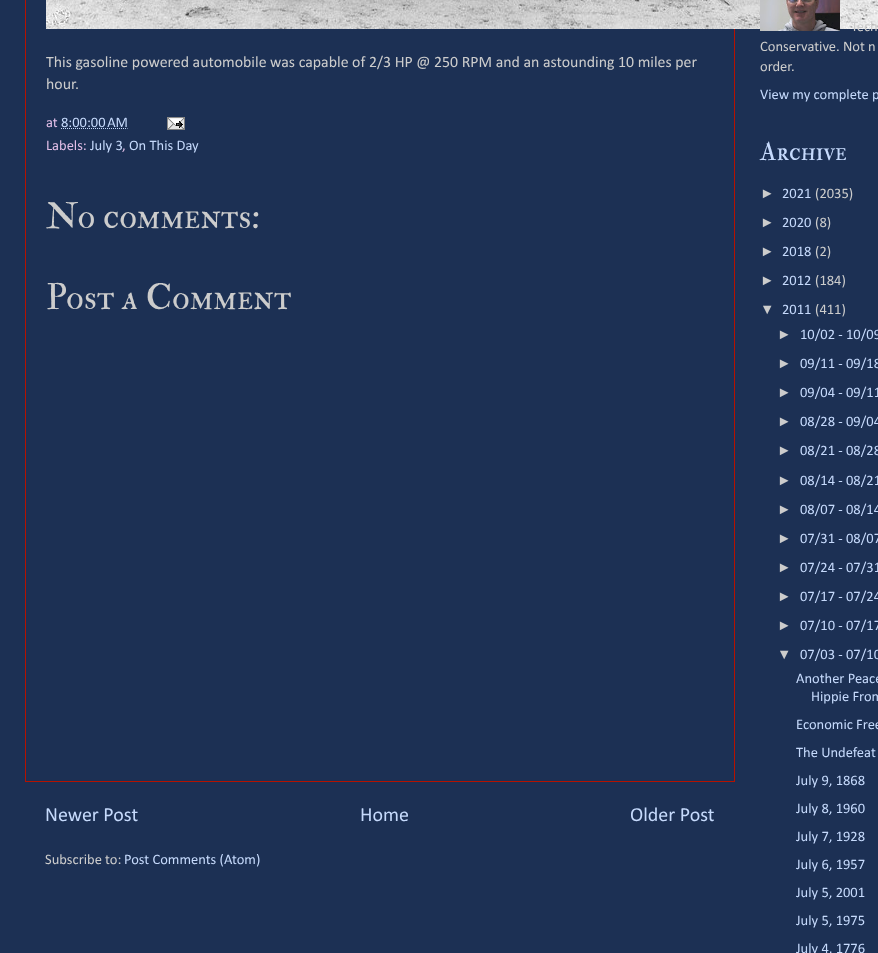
<?xml version="1.0" encoding="UTF-8"?>
<svg xmlns="http://www.w3.org/2000/svg" width="878" height="953">
    <rect width="100%" height="100%" fill="#1C3054"/>
    <rect x="25.5" y="-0.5" width="709" height="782" fill="none" stroke="#B51200"/>
    <image x="46" y="0" width="832" height="29" href="img_01.png"/>
    <text font-family="Calibri" font-size="15.85" fill="#CCCCCC">
        <tspan x="46" y="67">This gasoline powered automobile was capable of 2/3 HP @ 250 RPM and an astounding 10 miles per</tspan>
        <tspan x="46" y="89">hour.</tspan>
    </text>
    <text x="46" y="127" font-family="Calibri" font-size="14.5" fill="#E1BEE7">at</text>
    <text x="61" y="127" font-family="Calibri" font-size="14.5" fill="#C6DAFC">8:00:00 AM</text>
    <path d="M 61 128.5 H 127.5" fill="none" stroke="#C6DAFC" stroke-dasharray="1 1"/>
    <image x="167" y="117" width="18" height="13" href="img_02.png"/>
    <text x="46" y="150" font-family="Calibri" font-size="14.5" fill="#E1BEE7">Labels:</text>
    <text x="90" y="150" font-family="Calibri" font-size="14.5" fill="#C6DAFC">July 3</text>
    <text x="122" y="150" font-family="Calibri" font-size="14.5" fill="#E1BEE7">,</text>
    <text x="129" y="150" font-family="Calibri" font-size="14.5" fill="#C6DAFC">On This Day</text>
    <text x="46" y="228" font-family="IM FELL Double Pica SC" font-size="36" fill="#CCCCCC">No comments:</text>
    <text x="46" y="309" font-family="IM FELL Double Pica SC" font-size="36" fill="#CCCCCC">Post a Comment</text>
    <text x="45" y="821" font-family="Calibri" font-size="20" fill="#C6DAFC">Newer Post</text>
    <text x="360" y="821" font-family="Calibri" font-size="20" fill="#C6DAFC">Home</text>
    <text x="630" y="821" font-family="Calibri" font-size="20" fill="#C6DAFC">Older Post</text>
    <text x="45" y="864" font-family="Calibri" font-size="14.5" fill="#CCCCCC">Subscribe to:</text>
    <text x="124" y="864" font-family="Calibri" font-size="14.5" fill="#C6DAFC">Post Comments (Atom)</text>
    <image x="760" y="0" width="80" height="31" href="img_03.png"/>
    <text x="851" y="31" font-family="Calibri" font-size="14.5" fill="#CCCCCC">Tech</text>
    <text font-family="Calibri" font-size="14.5" fill="#CCCCCC">
        <tspan x="760" y="51">Conservative. Not n</tspan>
        <tspan x="760" y="71">order.</tspan>
    </text>
    <text x="760" y="99" font-family="Calibri" font-size="14.5" fill="#C6DAFC">View my complete p</text>
    <text x="760" y="160" font-family="IM FELL Double Pica SC" font-size="26" fill="#C6DAFC">Archive</text>
    <text x="760" y="198" font-family="Liberation Sans" font-size="14.5" fill="#CCCCCC">►</text>
    <text x="782" y="198" font-family="Calibri" font-size="14.5" fill="#C6DAFC">2021</text>
    <text x="815" y="198" font-family="Calibri" font-size="14.5" fill="#CCCCCC">(2035)</text>
    <text x="760" y="227" font-family="Liberation Sans" font-size="14.5" fill="#CCCCCC">►</text>
    <text x="782" y="227" font-family="Calibri" font-size="14.5" fill="#C6DAFC">2020</text>
    <text x="815" y="227" font-family="Calibri" font-size="14.5" fill="#CCCCCC">(8)</text>
    <text x="760" y="256" font-family="Liberation Sans" font-size="14.5" fill="#CCCCCC">►</text>
    <text x="782" y="256" font-family="Calibri" font-size="14.5" fill="#C6DAFC">2018</text>
    <text x="815" y="256" font-family="Calibri" font-size="14.5" fill="#CCCCCC">(2)</text>
    <text x="760" y="285" font-family="Liberation Sans" font-size="14.5" fill="#CCCCCC">►</text>
    <text x="782" y="285" font-family="Calibri" font-size="14.5" fill="#C6DAFC">2012</text>
    <text x="815" y="285" font-family="Calibri" font-size="14.5" fill="#CCCCCC">(184)</text>
    <text x="760" y="314" font-family="Liberation Sans" font-size="14.5" fill="#CCCCCC">▼</text>
    <text x="782" y="314" font-family="Calibri" font-size="14.5" fill="#C6DAFC">2011</text>
    <text x="815" y="314" font-family="Calibri" font-size="14.5" fill="#CCCCCC">(411)</text>
    <text x="777" y="339" font-family="Liberation Sans" font-size="14.5" fill="#CCCCCC">►</text>
    <text x="800" y="339" font-family="Calibri" font-size="14.5" fill="#C6DAFC">10/02 - 10/09</text>
    <text x="777" y="368" font-family="Liberation Sans" font-size="14.5" fill="#CCCCCC">►</text>
    <text x="800" y="368" font-family="Calibri" font-size="14.5" fill="#C6DAFC">09/11 - 09/18</text>
    <text x="777" y="397" font-family="Liberation Sans" font-size="14.5" fill="#CCCCCC">►</text>
    <text x="800" y="397" font-family="Calibri" font-size="14.5" fill="#C6DAFC">09/04 - 09/11</text>
    <text x="777" y="426" font-family="Liberation Sans" font-size="14.5" fill="#CCCCCC">►</text>
    <text x="800" y="426" font-family="Calibri" font-size="14.5" fill="#C6DAFC">08/28 - 09/04</text>
    <text x="777" y="455" font-family="Liberation Sans" font-size="14.5" fill="#CCCCCC">►</text>
    <text x="800" y="455" font-family="Calibri" font-size="14.5" fill="#C6DAFC">08/21 - 08/28</text>
    <text x="777" y="485" font-family="Liberation Sans" font-size="14.5" fill="#CCCCCC">►</text>
    <text x="800" y="485" font-family="Calibri" font-size="14.5" fill="#C6DAFC">08/14 - 08/21</text>
    <text x="777" y="514" font-family="Liberation Sans" font-size="14.5" fill="#CCCCCC">►</text>
    <text x="800" y="514" font-family="Calibri" font-size="14.5" fill="#C6DAFC">08/07 - 08/14</text>
    <text x="777" y="543" font-family="Liberation Sans" font-size="14.5" fill="#CCCCCC">►</text>
    <text x="800" y="543" font-family="Calibri" font-size="14.5" fill="#C6DAFC">07/31 - 08/07</text>
    <text x="777" y="572" font-family="Liberation Sans" font-size="14.5" fill="#CCCCCC">►</text>
    <text x="800" y="572" font-family="Calibri" font-size="14.5" fill="#C6DAFC">07/24 - 07/31</text>
    <text x="777" y="601" font-family="Liberation Sans" font-size="14.5" fill="#CCCCCC">►</text>
    <text x="800" y="601" font-family="Calibri" font-size="14.5" fill="#C6DAFC">07/17 - 07/24</text>
    <text x="777" y="630" font-family="Liberation Sans" font-size="14.5" fill="#CCCCCC">►</text>
    <text x="800" y="630" font-family="Calibri" font-size="14.5" fill="#C6DAFC">07/10 - 07/17</text>
    <text x="777" y="659" font-family="Liberation Sans" font-size="14.5" fill="#CCCCCC">▼</text>
    <text x="800" y="659" font-family="Calibri" font-size="14.5" fill="#C6DAFC">07/03 - 07/10</text>
    <text x="796" y="683" font-family="Calibri" font-size="14.5" fill="#C6DAFC">Another Peace</text>
    <text x="811" y="701" font-family="Calibri" font-size="14.5" fill="#C6DAFC">Hippie From</text>
    <text font-family="Calibri" font-size="14.5" fill="#C6DAFC">
        <tspan x="796" y="729">Economic Free</tspan>
        <tspan x="796" y="757">The Undefeat</tspan>
        <tspan x="796" y="785">July 9, 1868</tspan>
        <tspan x="796" y="813">July 8, 1960</tspan>
        <tspan x="796" y="841">July 7, 1928</tspan>
        <tspan x="796" y="869">July 6, 1957</tspan>
        <tspan x="796" y="897">July 5, 2001</tspan>
        <tspan x="796" y="925">July 5, 1975</tspan>
        <tspan x="796" y="953">July 4, 1776</tspan>
    </text>
</svg>
